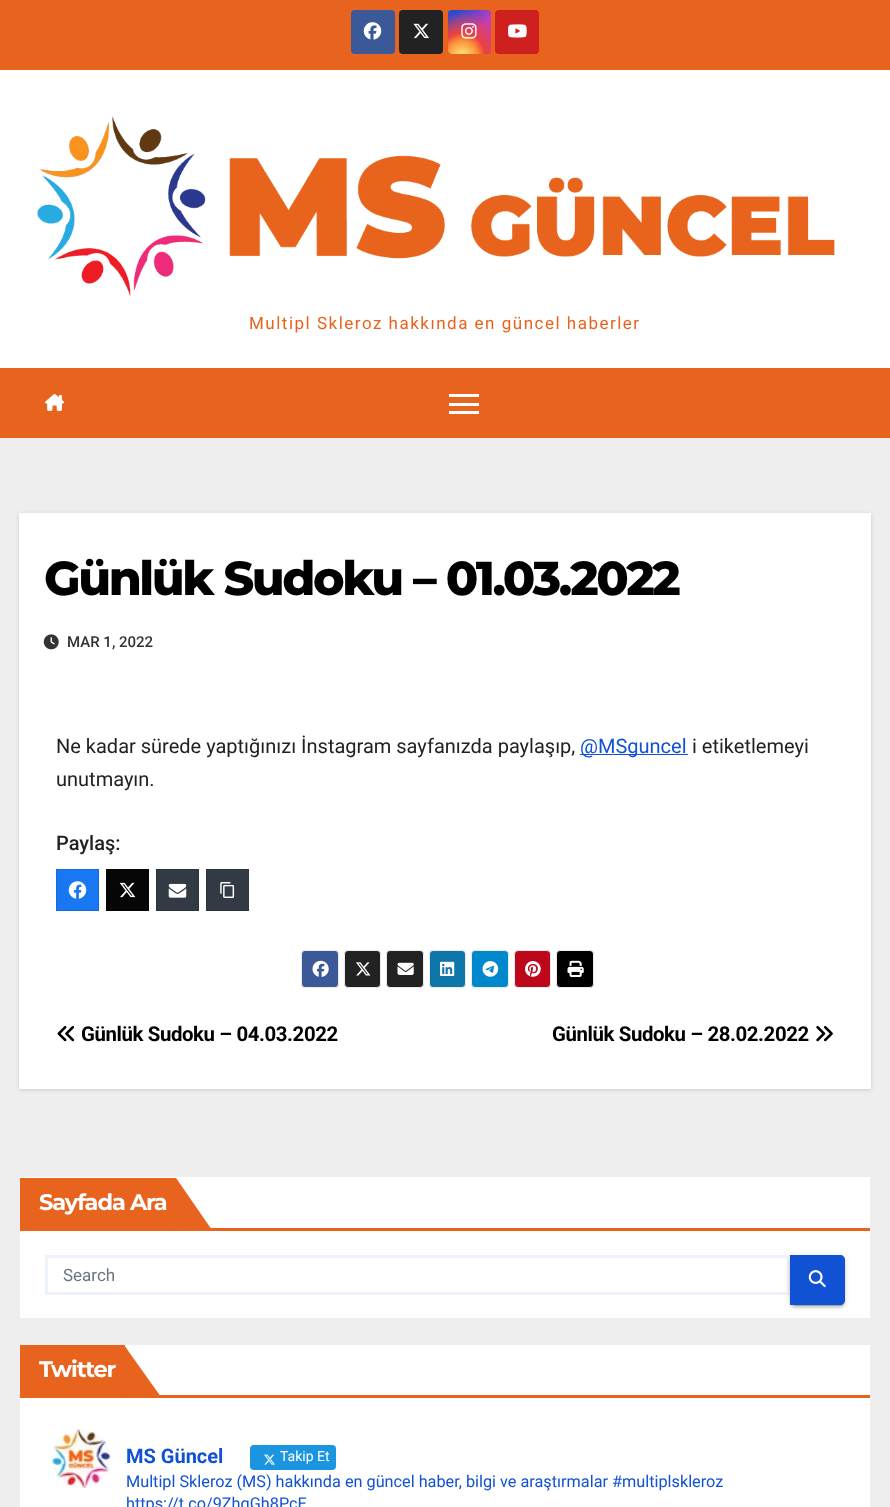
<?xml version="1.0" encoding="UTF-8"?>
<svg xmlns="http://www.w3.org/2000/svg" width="890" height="1507">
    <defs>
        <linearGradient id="g1" gradientUnits="userSpaceOnUse" x1="448" y1="10" x2="491" y2="54"><stop offset="0.12" stop-color="#234BD7"/><stop offset="0.58" stop-color="#C33CBE"/></linearGradient>
        <radialGradient id="g2" gradientUnits="userSpaceOnUse" cx="462" cy="56" r="55"><stop offset="0" stop-color="#FFE17D"/><stop offset="0.1" stop-color="#FFCD69"/><stop offset="0.28" stop-color="#FA9137"/><stop offset="0.42" stop-color="#EB4141"/><stop offset="0.82" stop-color="#EB4141" stop-opacity="0"/></radialGradient>
        <filter id="blur1" x="-50%" y="-200%" width="200%" height="500%"><feGaussianBlur stdDeviation="2"/></filter>
        <filter id="blur2" x="-50%" y="-200%" width="200%" height="500%"><feGaussianBlur stdDeviation="3"/></filter>
        <filter id="blur3" x="-50%" y="-200%" width="200%" height="500%"><feGaussianBlur stdDeviation="0.5"/></filter>
        <filter id="blur4" x="-50%" y="-200%" width="200%" height="500%"><feGaussianBlur stdDeviation="1"/></filter>
    </defs>
    <rect width="100%" height="100%" fill="#EEEEEE"/>
    <rect x="0" y="0" width="890" height="70" fill="#E8631D"/>
    <rect x="351" y="10" width="44" height="44" rx="4" fill="#3B5998"/>
    <image x="363" y="22" width="19" height="18" href="img_01.png"/>
    <rect x="399" y="10" width="44" height="44" rx="4" fill="#222222"/>
    <image x="413" y="23" width="16" height="16" href="img_02.png"/>
    <rect x="448" y="10" width="43" height="44" rx="4" fill="url(#g1)"/>
    <rect x="448" y="10" width="43" height="44" rx="4" fill="url(#g2)"/>
    <image x="461" y="23" width="16" height="16" href="img_03.png"/>
    <rect x="495" y="10" width="44" height="44" rx="4" fill="#CD201F"/>
    <image x="508" y="24" width="19" height="14" href="img_04.png"/>
    <rect x="0" y="70" width="890" height="298" fill="#FFFFFF"/>
    <image x="37" y="116" width="798" height="180" href="img_05.png"/>
    <text x="249" y="329" font-family="Roboto" font-size="17" letter-spacing="1.5" fill="#E8631D">Multipl Skleroz hakkında en güncel haberler</text>
    <rect x="0" y="368" width="890" height="70" fill="#E8631D"/>
    <image x="45" y="393" width="20" height="18" href="img_06.png"/>
    <rect x="449" y="394" width="30" height="3" fill="#FFFFFF"/>
    <rect x="449" y="403" width="30" height="3" fill="#FFFFFF"/>
    <rect x="449" y="411" width="30" height="3" fill="#FFFFFF"/>
    <rect x="19" y="514" width="852" height="576" fill="#000000" fill-opacity="0.15" filter="url(#blur1)"/>
    <rect x="19" y="513" width="852" height="576" fill="#FFFFFF"/>
    <text x="44" y="595" font-family="Montserrat" font-size="47.5" font-weight="800" letter-spacing="-2.4" fill="#000000">Günlük Sudoku – 01.03.2022</text>
    <image x="43" y="634" width="16" height="16" href="img_07.png"/>
    <text x="67" y="647" font-family="Roboto" font-size="15" font-weight="500" fill="#333333">MAR 1, 2022</text>
    <text x="56" y="753" font-family="Roboto" font-size="20" fill="#222222">Ne kadar sürede yaptığınızı İnstagram sayfanızda paylaşıp,</text>
    <rect x="580" y="754" width="108" height="1" fill="#1151D3"/>
    <text x="580" y="753" font-family="Roboto" font-size="20" fill="#1151D3">@MSguncel</text>
    <text x="692" y="753" font-family="Roboto" font-size="20" fill="#222222">i etiketlemeyi</text>
    <text x="56" y="786" font-family="Roboto" font-size="20" fill="#222222">unutmayın.</text>
    <text x="56" y="850" font-family="Roboto" font-size="20" font-weight="500" fill="#222222">Paylaş:</text>
    <rect x="56.5" y="869.5" width="42" height="41" fill="#1877F2" stroke="#166BDA"/>
    <image x="68" y="881" width="19" height="18" href="img_08.png"/>
    <rect x="106" y="869" width="43" height="42" fill="#060606"/>
    <image x="119" y="882" width="17" height="16" href="img_09.png"/>
    <rect x="156.5" y="869.5" width="42" height="41" fill="#323B43" stroke="#2D353C"/>
    <image x="168" y="883" width="19" height="15" href="img_10.png"/>
    <rect x="206.5" y="869.5" width="42" height="41" fill="#323B43" stroke="#2D353C"/>
    <image x="220" y="882" width="15" height="16" href="img_11.png"/>
    <rect x="301.5" y="950.5" width="37" height="37" rx="3.5" fill="#3B5998" stroke="#EBEBEB"/>
    <image x="312" y="960" width="17" height="17" href="img_12.png"/>
    <rect x="344.5" y="950.5" width="36" height="37" rx="3.5" fill="#222222" stroke="#EBEBEB"/>
    <image x="356" y="962" width="15" height="14" href="img_13.png"/>
    <rect x="386.5" y="950.5" width="37" height="37" rx="3.5" fill="#222222" stroke="#EBEBEB"/>
    <image x="397" y="962" width="17" height="13" href="img_14.png"/>
    <rect x="429.5" y="950.5" width="36" height="37" rx="3.5" fill="#0E76A8" stroke="#EBEBEB"/>
    <image x="440" y="961" width="15" height="15" href="img_15.png"/>
    <rect x="471.5" y="950.5" width="37" height="37" rx="3.5" fill="#0088CC" stroke="#EBEBEB"/>
    <image x="482" y="961" width="17" height="16" href="img_16.png"/>
    <rect x="514.5" y="950.5" width="36" height="37" rx="3.5" fill="#BD081C" stroke="#EBEBEB"/>
    <image x="525" y="961" width="16" height="16" href="img_17.png"/>
    <rect x="556.5" y="950.5" width="37" height="37" rx="3.5" fill="#000000" stroke="#EBEBEB"/>
    <image x="567" y="960" width="17" height="17" href="img_18.png"/>
    <image x="57" y="1026" width="18" height="16" href="img_19.png"/>
    <text x="81" y="1041" font-family="Roboto" font-size="20.4" font-weight="700" letter-spacing="-0.4" fill="#000000">Günlük Sudoku – 04.03.2022</text>
    <text x="552" y="1041" font-family="Roboto" font-size="20.4" font-weight="700" letter-spacing="-0.4" fill="#000000">Günlük Sudoku – 28.02.2022</text>
    <image x="816" y="1026" width="17" height="16" href="img_20.png"/>
    <rect x="20" y="1177" width="850" height="141" fill="#FFFFFF"/>
    <rect x="20" y="1228" width="850" height="3" fill="#E8631D"/>
    <rect x="20" y="1178" width="155" height="50" fill="#E8631D"/>
    <text x="39" y="1210" font-family="Montserrat" font-size="22.5" font-weight="700" letter-spacing="-1.1" fill="#FFFFFF">Sayfada Ara</text>
    <path d="M 175 1178 V 1230 H 212 L 176 1178 Z" fill="#E8631D"/>
    <path d="M 176 1179 L 175 1178 V 1230 L 179 1226 V 1183 Z" fill="#E8631D"/>
    <rect x="46.5" y="1256.5" width="742" height="37" fill="none" stroke="#EEF3FB" stroke-width="3"/>
    <text x="63" y="1281" font-family="Roboto" font-size="17" fill="#6C757D">Search</text>
    <rect x="790" y="1256" width="55" height="50" rx="5" fill="#000000" fill-opacity="0.12" filter="url(#blur2)"/>
    <rect x="793" y="1261" width="50" height="45" rx="2.5" fill="#000000" fill-opacity="0.2" filter="url(#blur3)"/>
    <rect x="790" y="1258" width="55" height="50" rx="5" fill="#000000" fill-opacity="0.14" filter="url(#blur4)"/>
    <path d="M 790 1255 H 840 C 843 1255 845 1257 845 1260 V 1300 C 845 1303 843 1305 840 1305 H 790 Z" fill="#1151D3"/>
    <image x="808" y="1270" width="18" height="18" href="img_21.png"/>
    <rect x="20" y="1345" width="850" height="162" fill="#FFFFFF"/>
    <rect x="20" y="1395" width="850" height="3" fill="#E8631D"/>
    <rect x="20" y="1345" width="105" height="50" fill="#E8631D"/>
    <text x="39" y="1377" font-family="Montserrat" font-size="22.5" font-weight="700" letter-spacing="-1.1" fill="#FFFFFF">Twitter</text>
    <path d="M 124 1345 V 1397 H 161 Z" fill="#E8631D"/>
    <path d="M 124 1345 V 1397 H 125 L 128 1394 V 1351 Z" fill="#E8631D"/>
    <image x="51" y="1429" width="60" height="60" href="img_22.png"/>
    <text x="126" y="1463" font-family="Roboto" font-size="20" font-weight="700" fill="#1151D3">MS Güncel</text>
    <rect x="250" y="1445" width="86" height="25" rx="4" fill="#1B95E0"/>
    <image x="264" y="1454" width="11" height="11" href="img_23.png"/>
    <text x="280" y="1461" font-family="Roboto" font-size="14" fill="#FFFFFF">Takip Et</text>
    <text font-family="Roboto" font-size="16.25" fill="#1151D3">
        <tspan x="126" y="1487">Multipl Skleroz (MS) hakkında en güncel haber, bilgi ve araştırmalar #multiplskleroz</tspan>
        <tspan x="126" y="1509">https://t.co/9ZhqGh8PcE</tspan>
    </text>
</svg>
